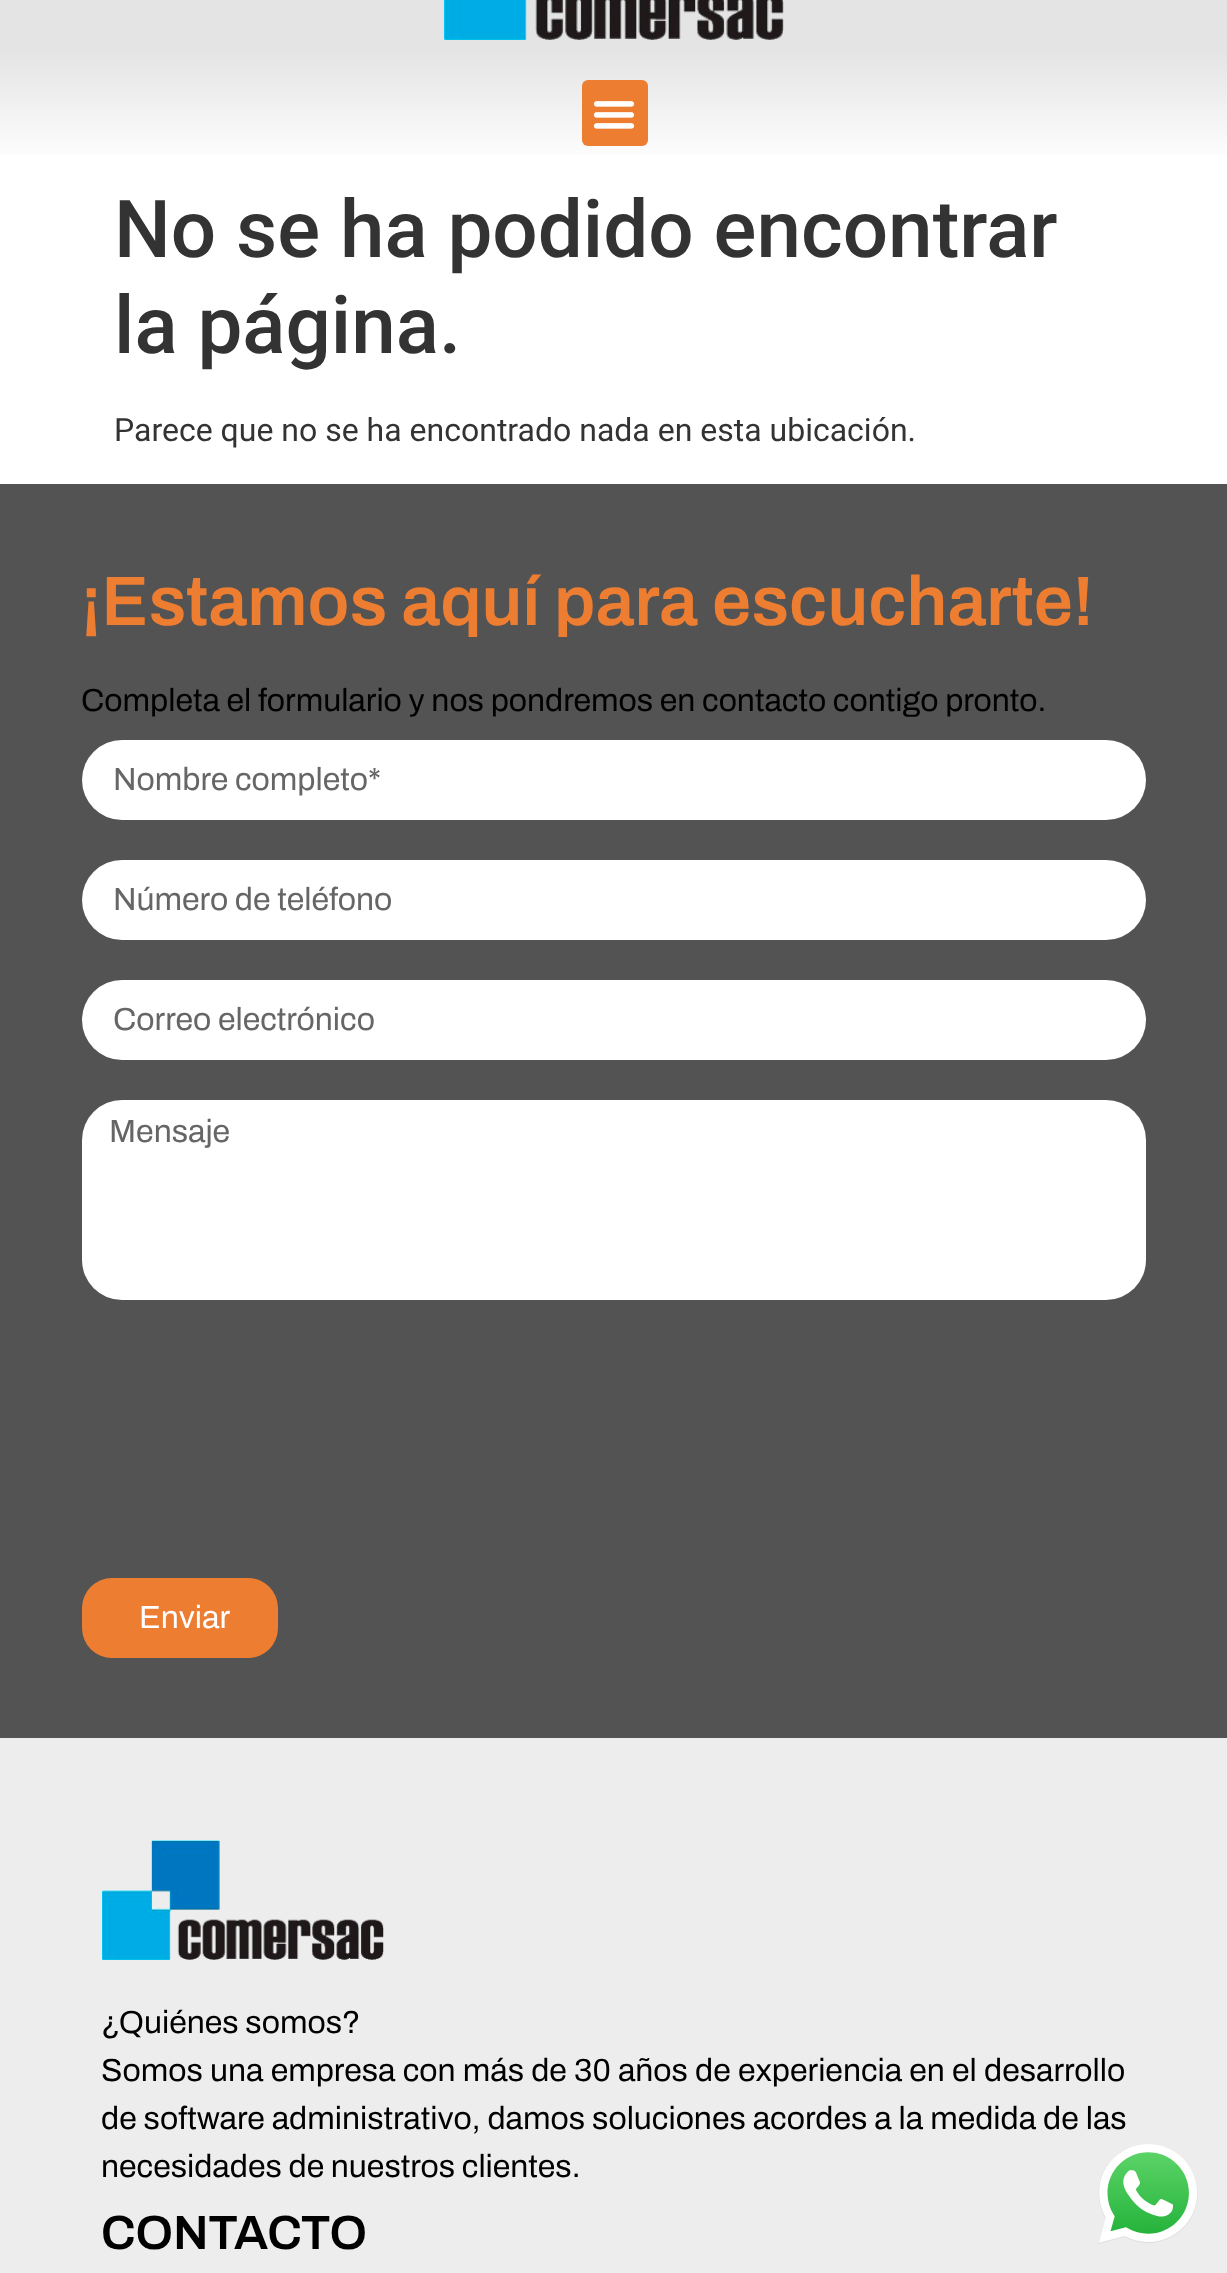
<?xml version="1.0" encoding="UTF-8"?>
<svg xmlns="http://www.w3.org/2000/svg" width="1227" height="2273">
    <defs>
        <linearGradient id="g1" gradientUnits="userSpaceOnUse" x1="614" y1="-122" x2="614" y2="166"><stop offset="0.6" stop-color="#E4E4E4"/><stop offset="1" stop-color="#FFFFFF"/></linearGradient>
    </defs>
    <rect width="100%" height="100%" fill="#FFFFFF"/>
    <rect x="0" y="0" width="1227" height="155" fill="url(#g1)"/>
    <image x="444" y="0" width="340" height="40" href="img_01.png"/>
    <rect x="582" y="80" width="66" height="66" rx="6" fill="#ED7D31"/>
    <image x="593" y="101" width="42" height="28" href="img_02.png"/>
    <text font-family="Roboto" font-size="80" font-weight="500" fill="#333333">
        <tspan x="114" y="257">No se ha podido encontrar</tspan>
        <tspan x="114" y="353">la página.</tspan>
    </text>
    <text x="114" y="441" font-family="Roboto" font-size="32" fill="#333333">Parece que no se ha encontrado nada en esta ubicación.</text>
    <rect x="0" y="484" width="1227" height="1254" fill="#535353"/>
    <text x="81" y="625" font-family="Archivo" font-size="70" font-weight="600" fill="#ED7D31">¡Estamos aquí para escucharte!</text>
    <text x="81" y="711" font-family="Archivo" font-size="32" fill="#000000">Completa el formulario y nos pondremos en contacto contigo pronto.</text>
    <rect x="82" y="740" width="1064" height="80" rx="40" fill="#FFFFFF"/>
    <text x="113" y="790" font-family="Archivo" font-size="32" fill="#666666">Nombre completo*</text>
    <rect x="82" y="860" width="1064" height="80" rx="40" fill="#FFFFFF"/>
    <text x="113" y="910" font-family="Archivo" font-size="32" fill="#666666">Número de teléfono</text>
    <rect x="82" y="980" width="1064" height="80" rx="40" fill="#FFFFFF"/>
    <text x="113" y="1030" font-family="Archivo" font-size="32" fill="#666666">Correo electrónico</text>
    <rect x="82" y="1100" width="1064" height="200" rx="40" fill="#FFFFFF"/>
    <text x="109" y="1142" font-family="Archivo" font-size="32" fill="#666666">Mensaje</text>
    <rect x="82" y="1578" width="196" height="80" rx="30" fill="#ED7D31"/>
    <text x="139" y="1628" font-family="Archivo" font-size="32" fill="#FFFFFF">Enviar</text>
    <rect x="0" y="1738" width="1227" height="535" fill="#EDEDED"/>
    <image x="102" y="1840" width="282" height="120" href="img_03.png"/>
    <text font-family="Archivo" font-size="32" fill="#000000">
        <tspan x="101" y="2033">¿Quiénes somos?</tspan>
        <tspan x="101" y="2081" word-spacing="0.5">Somos una empresa con más de 30 años de experiencia en el desarrollo</tspan>
        <tspan x="101" y="2129" word-spacing="0.25">de software administrativo, damos soluciones acordes a la medida de las</tspan>
        <tspan x="101" y="2177">necesidades de nuestros clientes.</tspan>
    </text>
    <text x="101" y="2249" font-family="Archivo" font-size="48" font-weight="600" fill="#000000">CONTACTO</text>
    <image x="1098" y="2144" width="100" height="100" href="img_04.png"/>
</svg>
